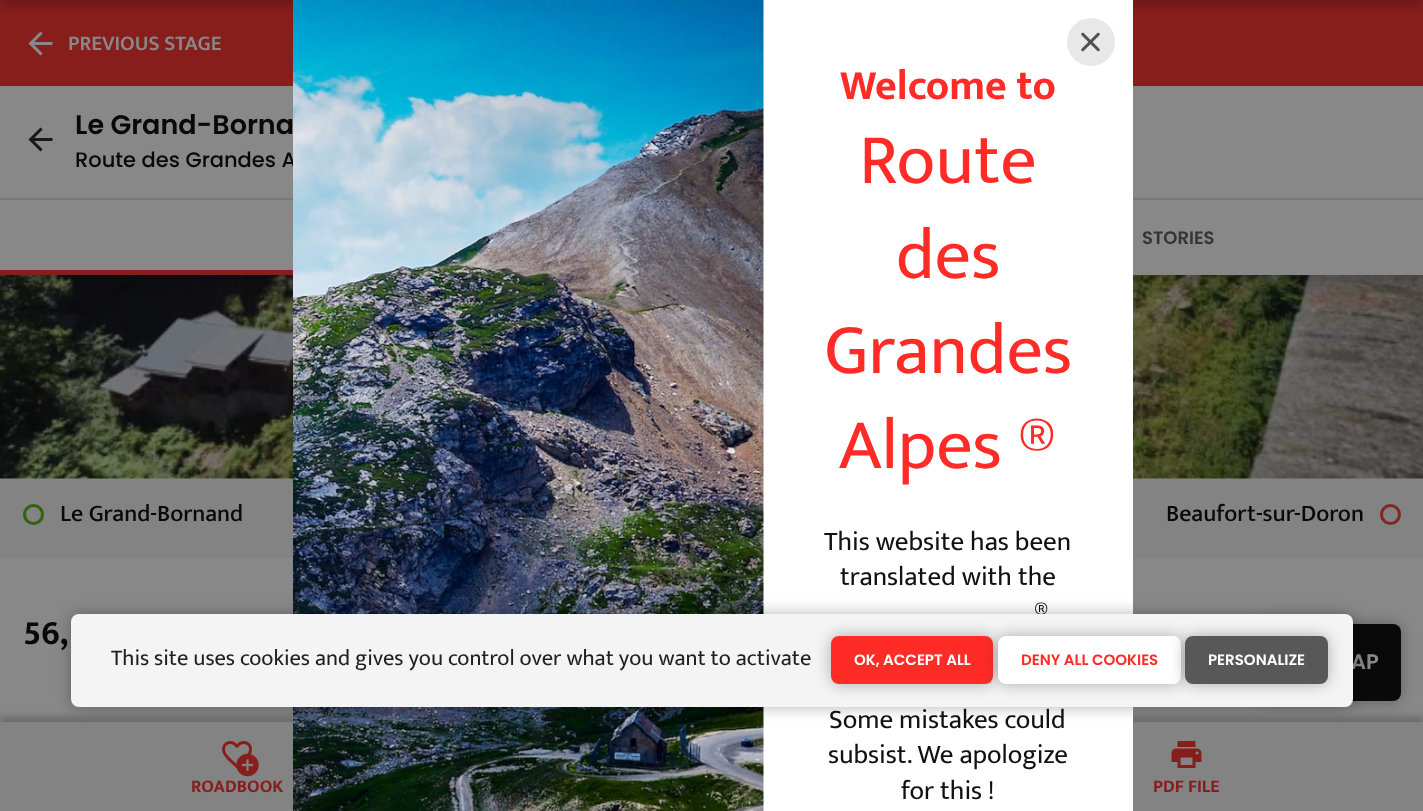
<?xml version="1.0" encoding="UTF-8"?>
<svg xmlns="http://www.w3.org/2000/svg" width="1423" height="811">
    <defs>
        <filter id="blur1" x="-50%" y="-200%" width="200%" height="500%"><feGaussianBlur stdDeviation="6"/></filter>
        <filter id="blur2" x="-50%" y="-200%" width="200%" height="500%"><feGaussianBlur stdDeviation="3"/></filter>
        <filter id="blur3" x="-50%" y="-200%" width="200%" height="500%"><feGaussianBlur stdDeviation="7.5"/></filter>
    </defs>
    <rect width="100%" height="100%" fill="#888888"/>
    <rect x="0" y="0" width="1423" height="86" fill="#881E1C"/>
    <rect x="0" y="-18" width="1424" height="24" fill="#090909" fill-opacity="0.2" filter="url(#blur1)"/>
    <image x="28" y="31" width="25" height="25" href="img_01.png"/>
    <text x="68" y="50" font-family="Mukta Mahee" font-size="21" font-weight="600" fill="#888888">PREVIOUS STAGE</text>
    <image x="0" y="275" width="1423" height="204" href="img_03.png"/>
    <rect x="0" y="206" width="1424" height="75" fill="#090909" fill-opacity="0.2" filter="url(#blur1)"/>
    <rect x="0" y="198" width="1423" height="2" fill="#787878"/>
    <image x="28" y="127" width="25" height="25" href="img_02.png"/>
    <text x="75" y="134" font-family="Poppins" font-size="27" font-weight="600" fill="#090909">Le Grand-Borna</text>
    <text x="75" y="167" font-family="Poppins" font-size="21" font-weight="500" fill="#090909">Route des Grandes A</text>
    <rect x="0" y="200" width="1423" height="75" fill="#888888"/>
    <text x="1142" y="244" font-family="Poppins" font-size="18" font-weight="600" fill="#353535">STORIES</text>
    <rect x="0" y="270" width="293" height="5" fill="#881E1C"/>
    <rect x="0" y="479" width="1423" height="79" fill="#838383"/>
    <circle cx="33.5" cy="514.5" r="9" fill="none" stroke="#33630E" stroke-width="3"/>
    <text x="60" y="521" font-family="Mukta Mahee" font-size="24" font-weight="500" fill="#090909">Le Grand-Bornand</text>
    <text x="1166" y="521" font-family="Mukta Mahee" font-size="24" font-weight="500" fill="#090909">Beaufort-sur-Doron</text>
    <circle cx="1390.5" cy="514.5" r="9" fill="none" stroke="#802924" stroke-width="3"/>
    <text x="23" y="644" font-family="Mukta Mahee" font-size="36" font-weight="700" fill="#090909">56,</text>
    <rect x="0" y="716" width="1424" height="90" fill="#090909" fill-opacity="0.2" filter="url(#blur2)"/>
    <rect x="0" y="722" width="1423" height="89" fill="#838383"/>
    <rect x="1257" y="624" width="144" height="77" rx="8" fill="#090909" fill-opacity="0.3" filter="url(#blur3)"/>
    <rect x="1257" y="624" width="144" height="77" rx="8" fill="#090909"/>
    <text x="1351" y="669" font-family="Poppins" font-size="21" font-weight="600" fill="#888888">AP</text>
    <image x="222" y="741" width="30" height="28" href="img_04.png"/>
    <image x="236" y="753" width="23" height="24" href="img_05.png"/>
    <text x="191" y="792" font-family="Mukta Mahee" font-size="18" font-weight="700" fill="#881E1C">ROADBOOK</text>
    <image x="1171" y="741" width="31" height="27" href="img_06.png"/>
    <text x="1153" y="792" font-family="Mukta Mahee" font-size="18" font-weight="700" fill="#881E1C">PDF FILE</text>
    <rect x="763" y="0" width="370" height="811" fill="#FFFFFF"/>
    <circle cx="1091" cy="42" r="24" fill="#E8E8E8"/>
    <image x="1081" y="32" width="19" height="20" href="img_07.png"/>
    <image x="293" y="0" width="471" height="811" href="img_08.png"/>
    <text x="840" y="99" font-family="Mukta Mahee" font-size="42" font-weight="700" fill="#FF2B27">Welcome to</text>
    <text x="859" y="183" font-family="Mukta Mahee" font-size="72" fill="#FF2B27">Route</text>
    <text x="896" y="278" font-family="Mukta Mahee" font-size="72" fill="#FF2B27">des</text>
    <text x="824" y="373" font-family="Mukta Mahee" font-size="72" fill="#FF2B27">Grandes</text>
    <text x="839" y="468" font-family="Mukta Mahee" font-size="72" fill="#FF2B27">Alpes ®</text>
    <text x="824" y="550" font-family="Mukta Mahee" font-size="27" fill="#111111">This website has been</text>
    <text x="840" y="585" font-family="Mukta Mahee" font-size="27" fill="#111111">translated with the</text>
    <text x="1034" y="621" font-family="Mukta Mahee" font-size="27" fill="#111111">®</text>
    <text x="829" y="728" font-family="Mukta Mahee" font-size="27" fill="#111111">Some mistakes could</text>
    <text x="828" y="763" font-family="Mukta Mahee" font-size="27" fill="#111111">subsist. We apologize</text>
    <text x="901" y="799" font-family="Mukta Mahee" font-size="27" fill="#111111">for this !</text>
    <rect x="71" y="614" width="1282" height="93" rx="8" fill="#000000" fill-opacity="0.3" filter="url(#blur3)"/>
    <rect x="71" y="614" width="1282" height="93" rx="8" fill="#F4F4F4"/>
    <text x="111" y="665" font-family="Mukta Mahee" font-size="22.5" fill="#231F20">This site uses cookies and gives you control over what you want to activate</text>
    <rect x="831" y="636" width="162" height="48" rx="8" fill="#000000" fill-opacity="0.3" filter="url(#blur3)"/>
    <rect x="831" y="636" width="162" height="48" rx="8" fill="#FF2B27"/>
    <text x="854" y="665" font-family="Poppins" font-size="15" font-weight="600" fill="#FFFFFF">OK, ACCEPT ALL</text>
    <rect x="998" y="636" width="183" height="48" rx="8" fill="#000000" fill-opacity="0.3" filter="url(#blur3)"/>
    <rect x="998" y="636" width="183" height="48" rx="8" fill="#FFFFFF"/>
    <text x="1021" y="665" font-family="Poppins" font-size="15" font-weight="600" fill="#FF2B27">DENY ALL COOKIES</text>
    <rect x="1185" y="636" width="143" height="48" rx="8" fill="#000000" fill-opacity="0.3" filter="url(#blur3)"/>
    <rect x="1185" y="636" width="143" height="48" rx="8" fill="#585858"/>
    <text x="1208" y="665" font-family="Poppins" font-size="15" font-weight="600" fill="#FFFFFF">PERSONALIZE</text>
</svg>
